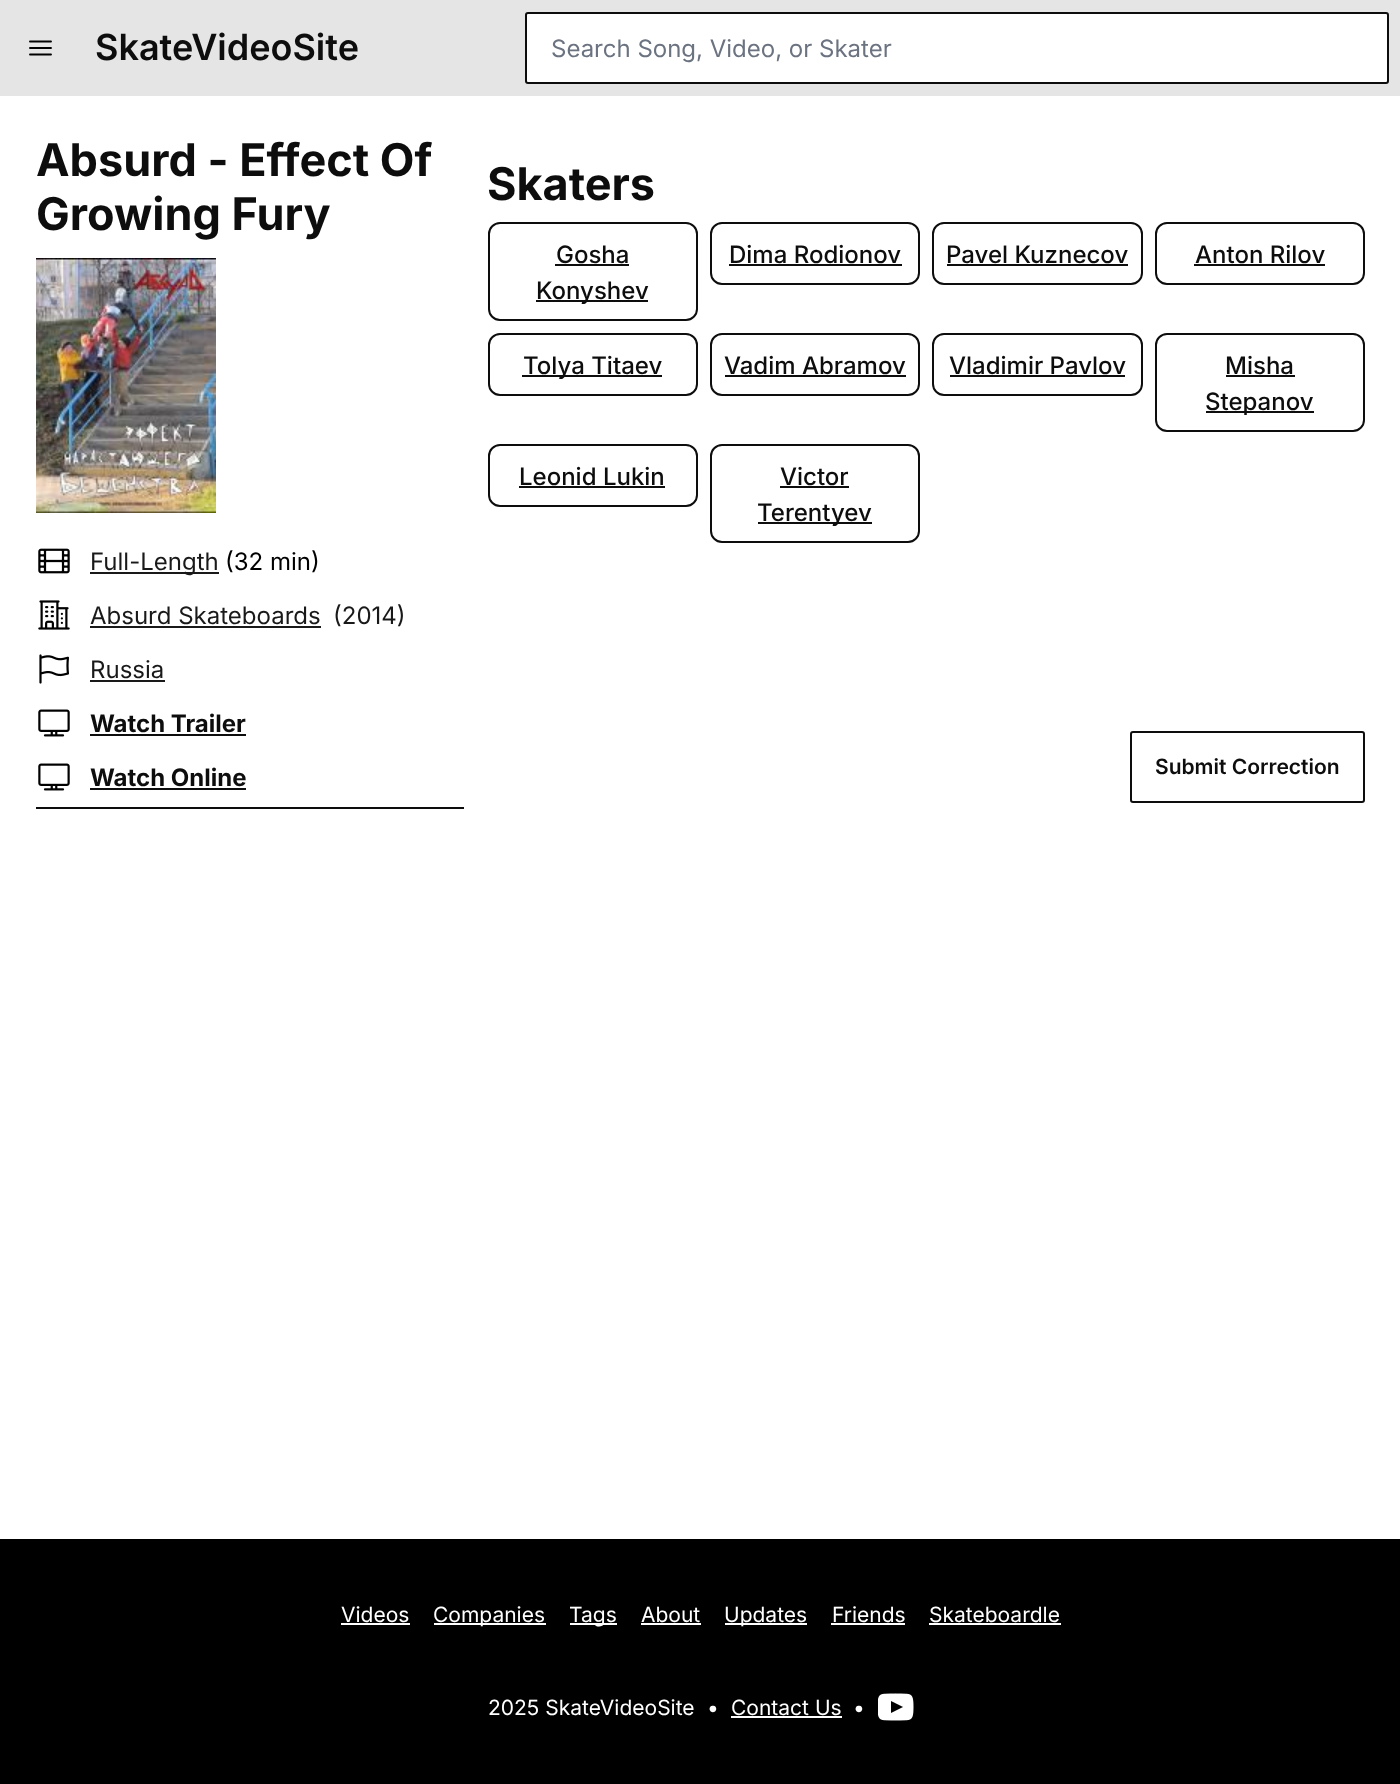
<?xml version="1.0" encoding="UTF-8"?>
<svg xmlns="http://www.w3.org/2000/svg" width="1400" height="1784">
    <rect width="100%" height="100%" fill="#FFFFFF"/>
    <rect x="0" y="0" width="1400" height="96" fill="#E6E5E5"/>
    <path d="M 30 41.5 H 51 M 30 48 H 51 M 30 54.5 H 51" fill="none" stroke="#000000" stroke-width="1.9" stroke-linecap="round" stroke-linejoin="round"/>
    <text x="95" y="60" font-family="Inter" font-size="36" font-weight="600" fill="#0D0D0D">SkateVideoSite</text>
    <rect x="526" y="13" width="862" height="70" rx="2" fill="#FFFFFF" stroke="#0D0D0D" stroke-width="2"/>
    <text x="551" y="57" font-family="Inter" font-size="24" fill="#6B7280">Search Song, Video, or Skater</text>
    <text font-family="Inter" font-size="45" font-weight="700" fill="#0D0D0D">
        <tspan x="36" y="176">Absurd - Effect Of</tspan>
        <tspan x="36" y="230">Growing Fury</tspan>
    </text>
    <image x="36" y="258" width="180" height="255" href="img_01.png"/>
    <rect x="36" y="807" width="428" height="2" fill="#0D0D0D"/>
    <image x="38" y="548" width="32" height="26" href="img_02.png"/>
    <rect x="90" y="572" width="129" height="2" fill="#1A1919"/>
    <text x="90" y="570" font-family="Inter" font-size="24" fill="#1A1919">Full-Length</text>
    <text x="225" y="570" font-family="Inter" font-size="24" fill="#000000">(32 min)</text>
    <image x="38" y="600" width="32" height="30" href="img_03.png"/>
    <text x="90" y="624" font-family="Inter" font-size="24" fill="#1A1919">Absurd Skateboards</text>
    <rect x="90" y="626" width="231" height="2" fill="#1A1919"/>
    <text x="333" y="624" font-family="Inter" font-size="24" fill="#1A1919">(2014)</text>
    <image x="39" y="654" width="30" height="30" href="img_04.png"/>
    <text x="90" y="678" font-family="Inter" font-size="24" fill="#1A1919">Russia</text>
    <rect x="90" y="680" width="75" height="2" fill="#1A1919"/>
    <image x="38" y="709" width="32" height="28" href="img_05.png"/>
    <text x="90" y="732" font-family="Inter" font-size="24" font-weight="700" fill="#0D0D0D">Watch Trailer</text>
    <rect x="90" y="734" width="156" height="2" fill="#0D0D0D"/>
    <image x="38" y="763" width="32" height="28" href="img_05.png"/>
    <text x="90" y="786" font-family="Inter" font-size="24" font-weight="700" fill="#0D0D0D">Watch Online</text>
    <rect x="90" y="788" width="156" height="2" fill="#0D0D0D"/>
    <text x="487" y="200" font-family="Inter" font-size="45" font-weight="700" fill="#0D0D0D">Skaters</text>
    <rect x="489" y="223" width="208" height="97" rx="11" fill="none" stroke="#0D0D0D" stroke-width="2"/>
    <text x="556" y="263" font-family="Inter" font-size="24" font-weight="500" fill="#0D0D0D">Gosha</text>
    <rect x="555" y="264" width="74" height="2" fill="#0D0D0D"/>
    <rect x="536" y="300" width="112" height="2" fill="#0D0D0D"/>
    <text x="536" y="299" font-family="Inter" font-size="24" font-weight="500" fill="#0D0D0D">Konyshev</text>
    <rect x="711" y="223" width="208" height="61" rx="11" fill="none" stroke="#0D0D0D" stroke-width="2"/>
    <text x="729" y="263" font-family="Inter" font-size="24" font-weight="500" fill="#0D0D0D">Dima Rodionov</text>
    <rect x="729" y="264" width="173" height="2" fill="#0D0D0D"/>
    <rect x="933" y="223" width="209" height="61" rx="11" fill="none" stroke="#0D0D0D" stroke-width="2"/>
    <text x="946" y="263" font-family="Inter" font-size="24" font-weight="500" fill="#0D0D0D">Pavel Kuznecov</text>
    <rect x="947" y="264" width="181" height="2" fill="#0D0D0D"/>
    <rect x="1156" y="223" width="208" height="61" rx="11" fill="none" stroke="#0D0D0D" stroke-width="2"/>
    <text x="1195" y="263" font-family="Inter" font-size="24" font-weight="500" fill="#0D0D0D">Anton Rilov</text>
    <rect x="1194" y="264" width="131" height="2" fill="#0D0D0D"/>
    <rect x="489" y="334" width="208" height="61" rx="11" fill="none" stroke="#0D0D0D" stroke-width="2"/>
    <rect x="522" y="375" width="140" height="2" fill="#0D0D0D"/>
    <text x="523" y="374" font-family="Inter" font-size="24" font-weight="500" fill="#0D0D0D">Tolya Titaev</text>
    <rect x="711" y="334" width="208" height="61" rx="11" fill="none" stroke="#0D0D0D" stroke-width="2"/>
    <text x="724" y="374" font-family="Inter" font-size="24" font-weight="500" fill="#0D0D0D">Vadim Abramov</text>
    <rect x="725" y="375" width="181" height="2" fill="#0D0D0D"/>
    <rect x="933" y="334" width="209" height="61" rx="11" fill="none" stroke="#0D0D0D" stroke-width="2"/>
    <text x="949" y="374" font-family="Inter" font-size="24" font-weight="500" fill="#0D0D0D">Vladimir Pavlov</text>
    <rect x="950" y="375" width="175" height="2" fill="#0D0D0D"/>
    <rect x="1156" y="334" width="208" height="97" rx="11" fill="none" stroke="#0D0D0D" stroke-width="2"/>
    <text x="1225" y="374" font-family="Inter" font-size="24" font-weight="500" fill="#0D0D0D">Misha</text>
    <rect x="1226" y="375" width="69" height="2" fill="#0D0D0D"/>
    <rect x="1206" y="411" width="108" height="2" fill="#0D0D0D"/>
    <text x="1205" y="410" font-family="Inter" font-size="24" font-weight="500" fill="#0D0D0D">Stepanov</text>
    <rect x="489" y="445" width="208" height="61" rx="11" fill="none" stroke="#0D0D0D" stroke-width="2"/>
    <text x="519" y="485" font-family="Inter" font-size="24" font-weight="500" fill="#0D0D0D">Leonid Lukin</text>
    <rect x="519" y="486" width="146" height="2" fill="#0D0D0D"/>
    <rect x="711" y="445" width="208" height="97" rx="11" fill="none" stroke="#0D0D0D" stroke-width="2"/>
    <text x="780" y="485" font-family="Inter" font-size="24" font-weight="500" fill="#0D0D0D">Victor</text>
    <rect x="780" y="486" width="69" height="2" fill="#0D0D0D"/>
    <rect x="758" y="522" width="114" height="2" fill="#0D0D0D"/>
    <text x="757" y="521" font-family="Inter" font-size="24" font-weight="500" fill="#0D0D0D">Terentyev</text>
    <rect x="1131" y="732" width="233" height="70" rx="2" fill="none" stroke="#0D0D0D" stroke-width="2"/>
    <text x="1155" y="774" font-family="Inter" font-size="21" font-weight="600" fill="#0D0D0D">Submit Correction</text>
    <rect x="0" y="1539" width="1400" height="245" fill="#000000"/>
    <text x="341" y="1622" font-family="Inter" font-size="21" fill="#FFFFFF">Videos</text>
    <rect x="341" y="1623" width="69" height="2" fill="#FFFFFF"/>
    <rect x="434" y="1623" width="112" height="2" fill="#FFFFFF"/>
    <text x="433" y="1622" font-family="Inter" font-size="21" fill="#FFFFFF">Companies</text>
    <rect x="570" y="1623" width="47" height="2" fill="#FFFFFF"/>
    <text x="569" y="1622" font-family="Inter" font-size="21" fill="#FFFFFF">Tags</text>
    <text x="641" y="1622" font-family="Inter" font-size="21" fill="#FFFFFF">About</text>
    <rect x="641" y="1623" width="60" height="2" fill="#FFFFFF"/>
    <rect x="725" y="1623" width="82" height="2" fill="#FFFFFF"/>
    <text x="724" y="1622" font-family="Inter" font-size="21" fill="#FFFFFF">Updates</text>
    <text x="832" y="1622" font-family="Inter" font-size="21" fill="#FFFFFF">Friends</text>
    <rect x="831" y="1623" width="74" height="2" fill="#FFFFFF"/>
    <text x="929" y="1622" font-family="Inter" font-size="21" fill="#FFFFFF">Skateboardle</text>
    <rect x="929" y="1623" width="132" height="2" fill="#FFFFFF"/>
    <text x="488" y="1715" font-family="Inter" font-size="21" fill="#FFFFFF">2025 SkateVideoSite</text>
    <text x="707" y="1715" font-family="Inter" font-size="21" fill="#FFFFFF">•</text>
    <text x="731" y="1715" font-family="Inter" font-size="21" fill="#FFFFFF">Contact Us</text>
    <rect x="731" y="1716" width="111" height="2" fill="#FFFFFF"/>
    <text x="853" y="1715" font-family="Inter" font-size="21" fill="#FFFFFF">•</text>
    <image x="878" y="1693" width="36" height="28" href="img_06.png"/>
</svg>
